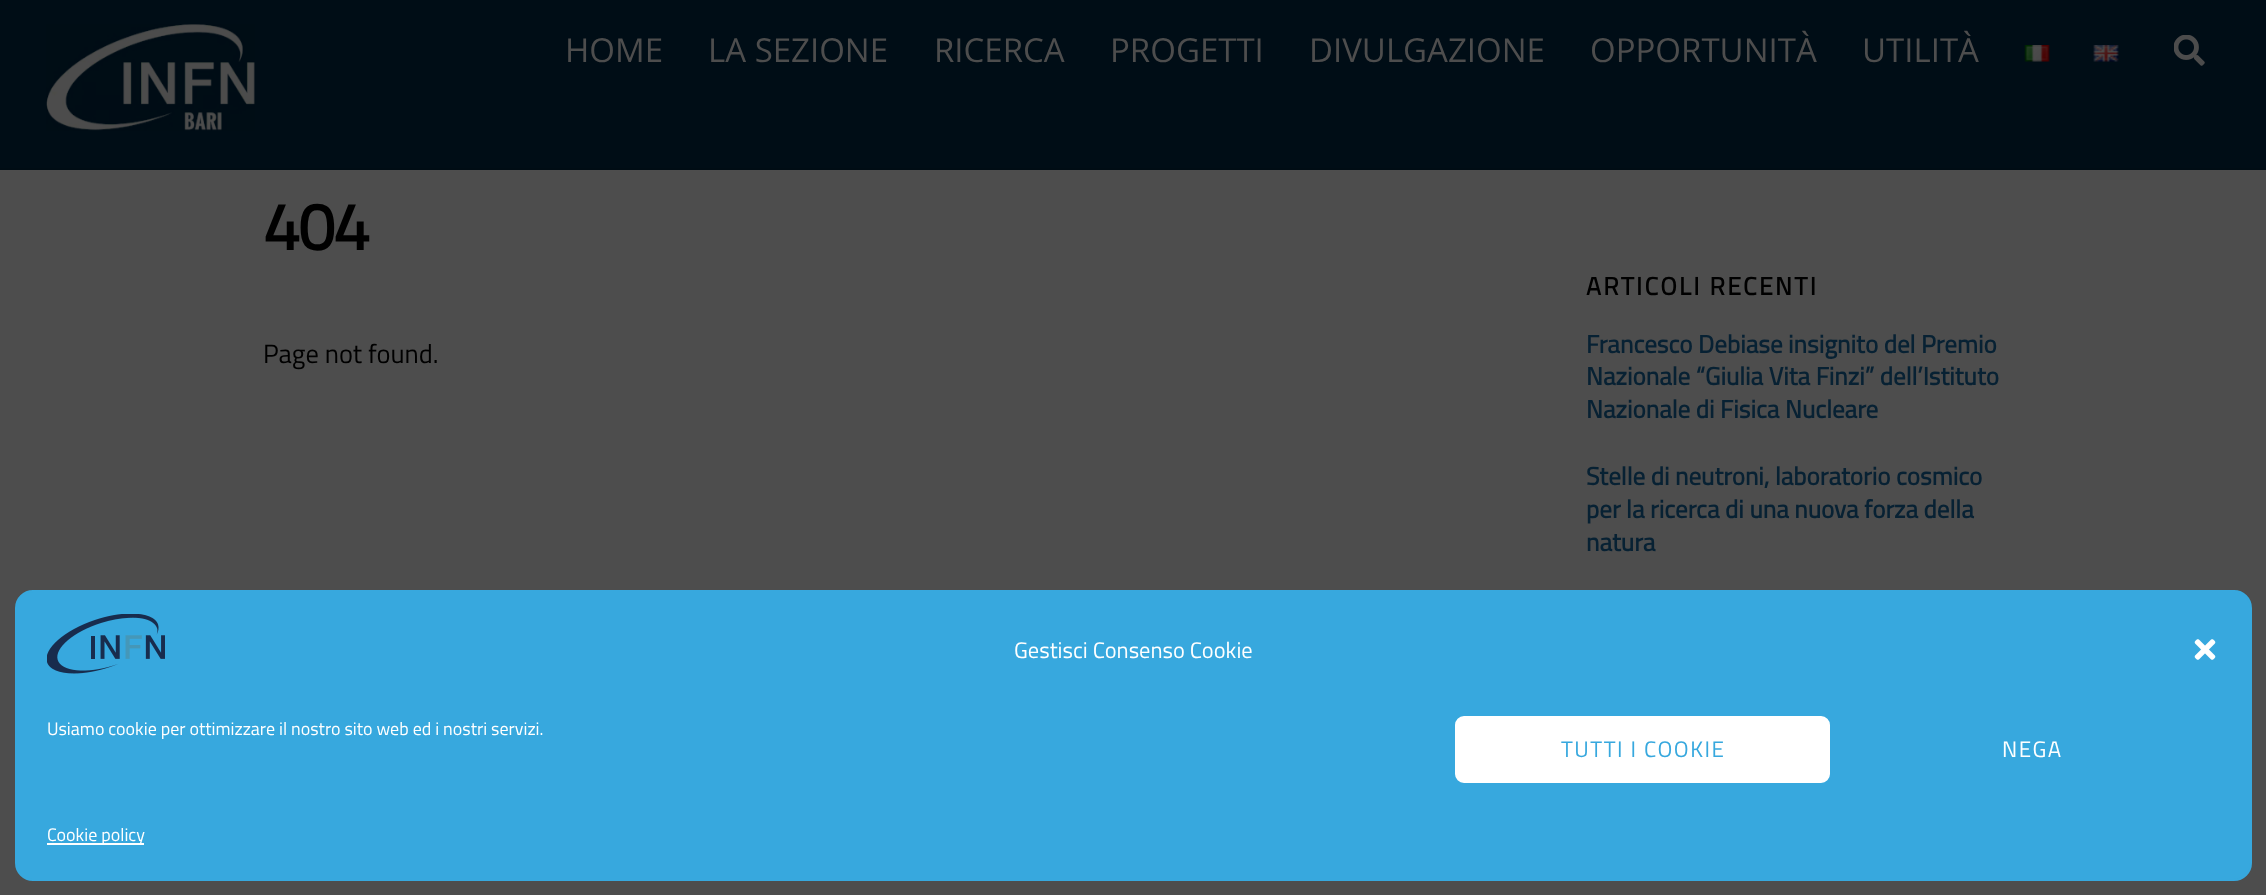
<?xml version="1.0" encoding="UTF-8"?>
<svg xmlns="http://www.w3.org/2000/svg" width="2266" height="895">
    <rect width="100%" height="100%" fill="#4D4D4D"/>
    <rect x="0" y="0" width="2266" height="168" fill="#000D16"/>
    <rect x="0" y="168" width="2266" height="2" fill="#000C14"/>
    <image x="46" y="24" width="209" height="107" href="img_01.png"/>
    <text x="565" y="62" font-family="Open Sans" font-size="33" fill="#4D4D4D">HOME</text>
    <text x="708" y="62" font-family="Open Sans" font-size="33" fill="#4D4D4D">LA SEZIONE</text>
    <text x="934" y="62" font-family="Open Sans" font-size="33" fill="#4D4D4D">RICERCA</text>
    <text x="1110" y="62" font-family="Open Sans" font-size="33" fill="#4D4D4D">PROGETTI</text>
    <text x="1309" y="62" font-family="Open Sans" font-size="33" fill="#4D4D4D">DIVULGAZIONE</text>
    <text x="1590" y="62" font-family="Open Sans" font-size="33" fill="#4D4D4D">OPPORTUNITÀ</text>
    <text x="1862" y="62" font-family="Open Sans" font-size="33" fill="#4D4D4D">UTILITÀ</text>
    <image x="2024" y="45" width="26" height="17" href="img_02.png"/>
    <image x="2093" y="45" width="26" height="17" href="img_03.png"/>
    <image x="2174" y="35" width="31" height="31" href="img_04.png"/>
    <text x="263" y="250" font-family="Titillium Web" font-size="66" font-weight="700" letter-spacing="-2" fill="#000000">404</text>
    <text x="263" y="363" font-family="Titillium Web" font-size="26.5" fill="#000000">Page not found.</text>
    <text x="1586" y="295" font-family="Titillium Web" font-size="25.1" font-weight="700" letter-spacing="2.25" fill="#000000">ARTICOLI RECENTI</text>
    <text font-family="Titillium Web" font-size="25.1" font-weight="700" fill="#072133">
        <tspan x="1586" y="353">Francesco Debiase insignito del Premio</tspan>
        <tspan x="1586" y="385">Nazionale “Giulia Vita Finzi” dell’Istituto</tspan>
        <tspan x="1586" y="418">Nazionale di Fisica Nucleare</tspan>
    </text>
    <text font-family="Titillium Web" font-size="25.1" font-weight="700" fill="#072133">
        <tspan x="1586" y="485">Stelle di neutroni, laboratorio cosmico</tspan>
        <tspan x="1586" y="518">per la ricerca di una nuova forza della</tspan>
        <tspan x="1586" y="551">natura</tspan>
    </text>
    <rect x="16" y="591" width="2235" height="289" rx="17" fill="#37A8DE" stroke="#37A8DE" stroke-width="2"/>
    <image x="47" y="614" width="118" height="60" href="img_05.png"/>
    <text x="1014" y="658" font-family="Titillium Web" font-size="22.5" fill="#FFFFFF">Gestisci Consenso Cookie</text>
    <image x="2194" y="639" width="22" height="21" href="img_06.png"/>
    <text x="47" y="735" font-family="Titillium Web" font-size="18" fill="#FFFFFF">Usiamo cookie per ottimizzare il nostro sito web ed i nostri servizi.</text>
    <rect x="1456" y="717" width="373" height="65" rx="8" fill="#FFFFFF" stroke="#FFFFFF" stroke-width="2"/>
    <text x="1561" y="757" font-family="Titillium Web" font-size="22.5" letter-spacing="1.5" fill="#37A8DE">TUTTI I COOKIE</text>
    <text x="2002" y="757" font-family="Titillium Web" font-size="22.5" letter-spacing="1.5" fill="#FFFFFF">NEGA</text>
    <rect x="47" y="843" width="97" height="2" fill="#FFFFFF"/>
    <text x="47" y="841" font-family="Titillium Web" font-size="18" fill="#FFFFFF">Cookie policy</text>
</svg>
